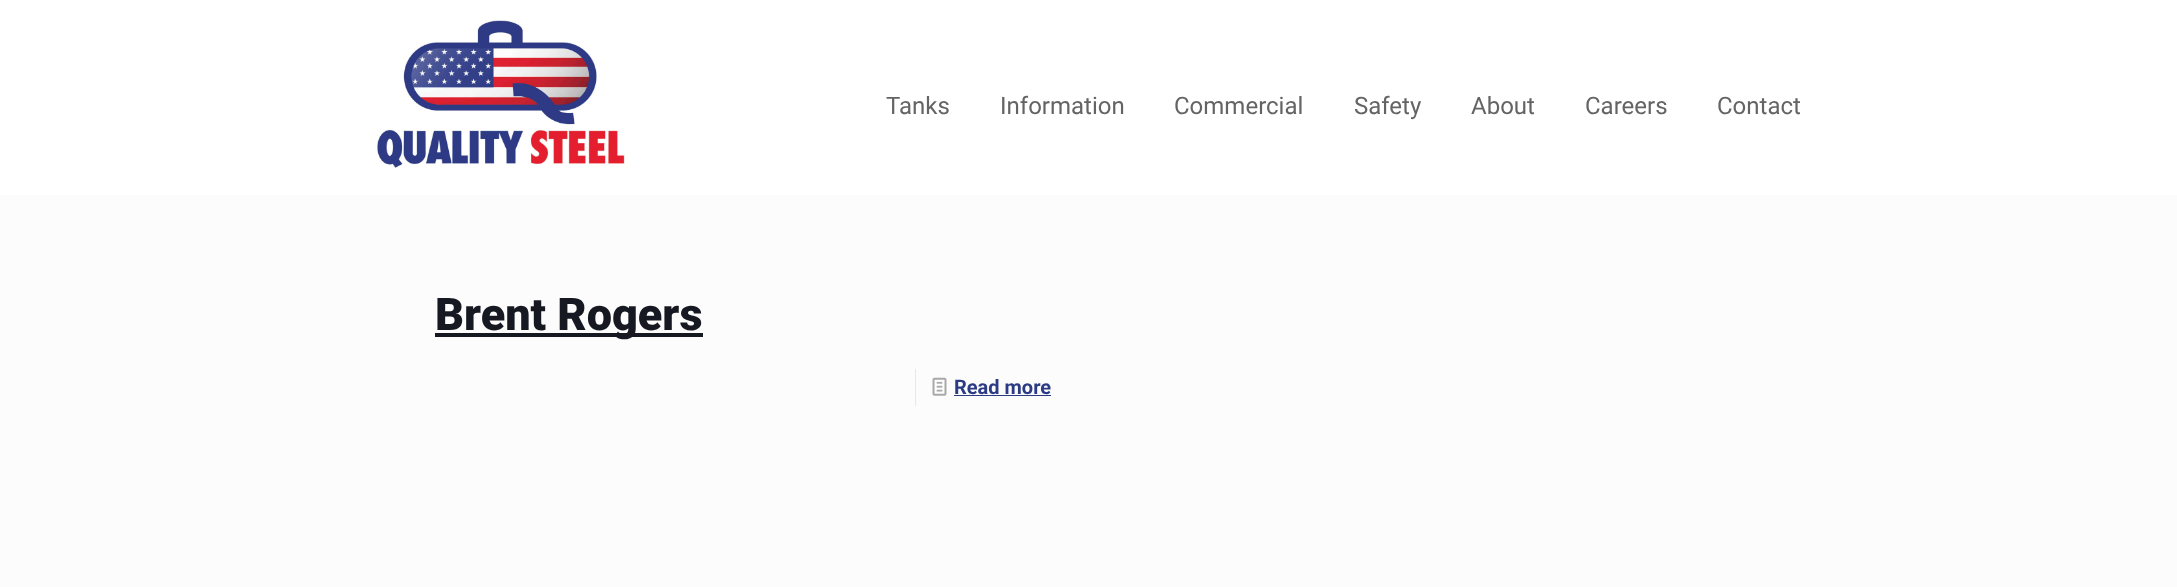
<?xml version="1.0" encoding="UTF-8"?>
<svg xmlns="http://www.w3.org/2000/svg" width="2177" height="587">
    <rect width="100%" height="100%" fill="#FCFCFC"/>
    <rect x="0" y="0" width="2177" height="195" fill="#FFFFFF"/>
    <image x="376" y="19" width="249" height="150" href="img_01.png"/>
    <text x="886" y="114" font-family="Roboto" font-size="24" fill="#646464">Tanks</text>
    <text x="1000" y="114" font-family="Roboto" font-size="24" fill="#646464">Information</text>
    <text x="1174" y="114" font-family="Roboto" font-size="24" fill="#646464">Commercial</text>
    <text x="1354" y="114" font-family="Roboto" font-size="24" fill="#646464">Safety</text>
    <text x="1471" y="114" font-family="Roboto" font-size="24" fill="#646464">About</text>
    <text x="1585" y="114" font-family="Roboto" font-size="24" fill="#646464">Careers</text>
    <text x="1717" y="114" font-family="Roboto" font-size="24" fill="#646464">Contact</text>
    <rect x="435" y="333" width="268" height="4" fill="#161922"/>
    <text x="435" y="330" font-family="Roboto" font-size="45" font-weight="900" fill="#161922">Brent Rogers</text>
    <rect x="915" y="369" width="1" height="37" fill="#E8E8E8"/>
    <image x="932" y="377" width="15" height="19" href="img_02.png"/>
    <text x="954" y="394" font-family="Roboto" font-size="20" font-weight="700" fill="#2B3B84">Read more</text>
    <rect x="954" y="395" width="97" height="1" fill="#2B3B84"/>
</svg>
